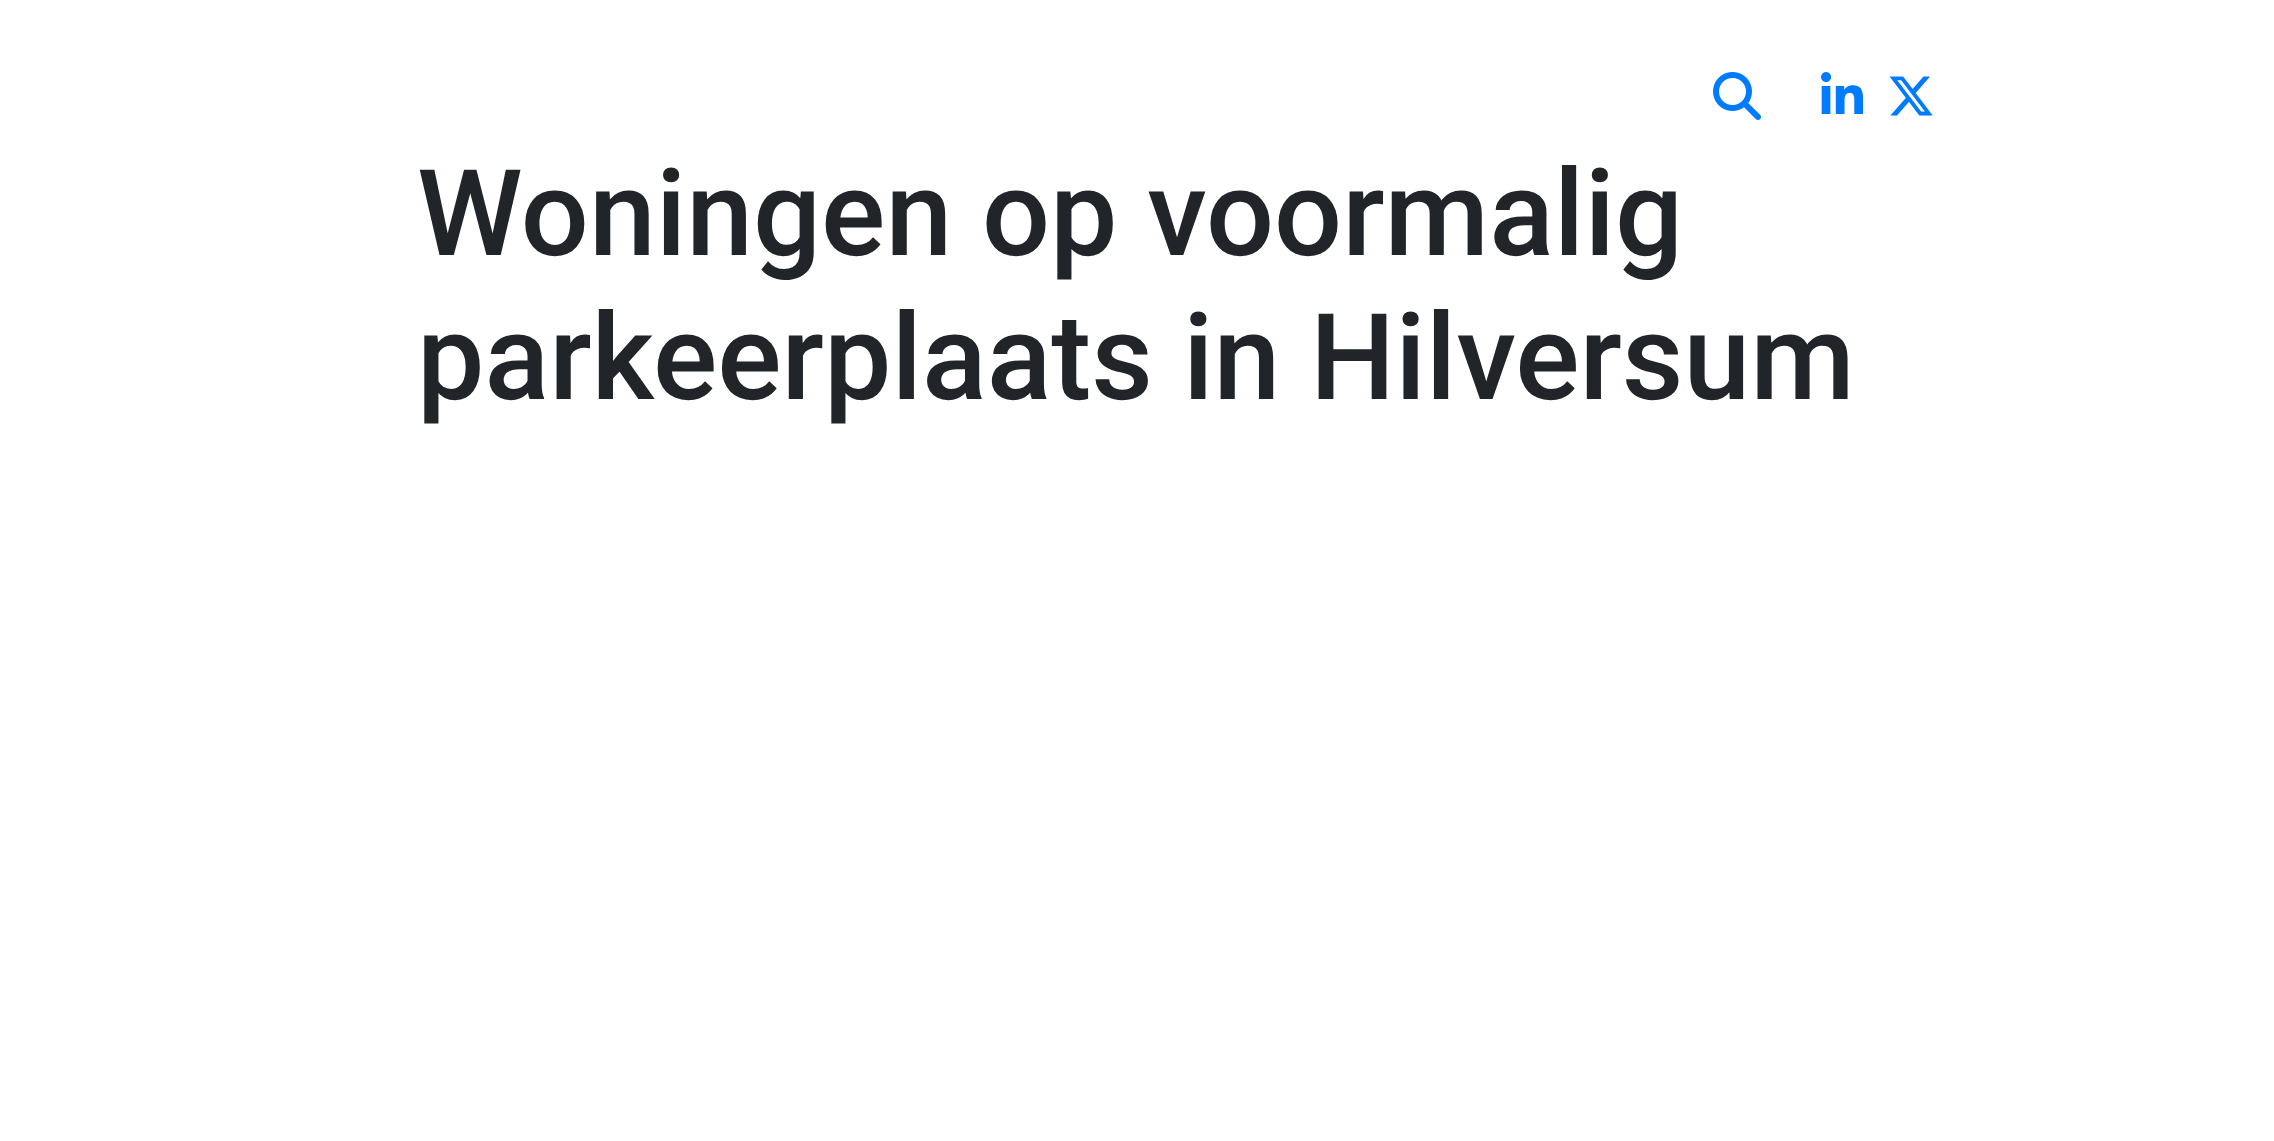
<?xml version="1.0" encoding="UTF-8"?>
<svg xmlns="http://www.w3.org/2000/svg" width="2274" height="1141">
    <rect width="100%" height="100%" fill="#FFFFFF"/>
    <image x="1713" y="72" width="48" height="48" href="img_01.png"/>
    <image x="1821" y="72" width="42" height="42" href="img_02.png"/>
    <image x="1889" y="76" width="44" height="40" href="img_03.png"/>
    <text font-family="Roboto" font-size="120" font-weight="500" fill="#212529">
        <tspan x="417" y="255">Woningen op voormalig</tspan>
        <tspan x="417" y="399">parkeerplaats in Hilversum</tspan>
    </text>
</svg>
